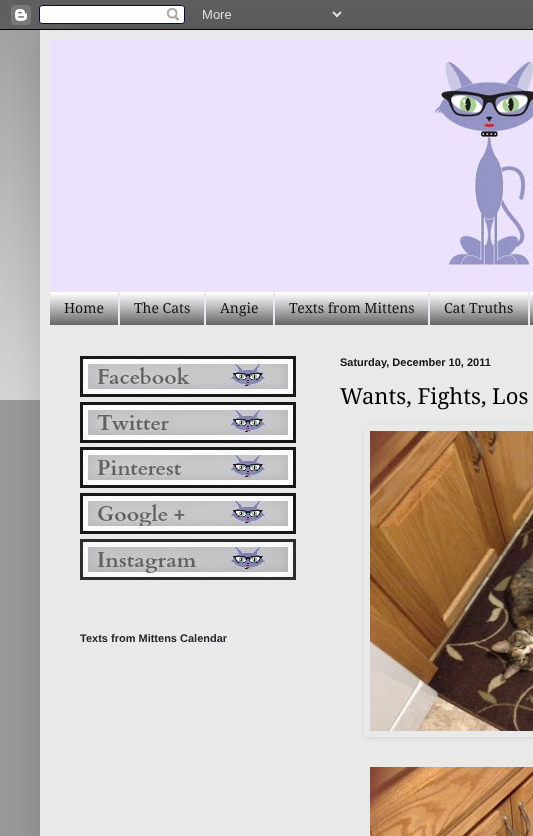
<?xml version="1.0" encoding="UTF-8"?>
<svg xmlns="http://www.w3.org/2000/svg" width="533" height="836">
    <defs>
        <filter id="blur1" x="-50%" y="-200%" width="200%" height="500%"><feGaussianBlur stdDeviation="20"/></filter>
        <clipPath id="clip1"><path d="M 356 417 H 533 V 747 H 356 Z M 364 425 H 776 V 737 H 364 Z" clip-rule="evenodd"/></clipPath>
        <filter id="blur2" x="-50%" y="-200%" width="200%" height="500%"><feGaussianBlur stdDeviation="2.5"/></filter>
    </defs>
    <rect width="100%" height="100%" fill="#999999"/>
    <image x="0" y="0" width="533" height="400" href="img_01.png"/>
    <rect x="40" y="30" width="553" height="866" fill="#000000" fill-opacity="0.15" filter="url(#blur1)"/>
    <image x="0" y="0" width="533" height="30" href="img_02.png"/>
    <rect x="40" y="30" width="493" height="806" fill="#E9E9E9"/>
    <image x="50" y="40" width="483" height="251" href="img_03.png"/>
    <rect x="50" y="293" width="483" height="32" fill="#494949"/>
    <image x="50" y="292" width="483" height="33" href="img_04.png"/>
    <rect x="50" y="291" width="483" height="1" fill="#EDE4F4"/>
    <rect x="50" y="325" width="483" height="1" fill="#EDE4F4"/>
    <rect x="118" y="292" width="1" height="33" fill="#EDE4F4"/>
    <text x="64" y="313" font-family="Droid Serif" font-size="14" fill="#151415">Home</text>
    <rect x="204" y="292" width="1" height="33" fill="#EDE4F4"/>
    <rect x="119" y="292" width="1" height="33" fill="#E9E9E9"/>
    <text x="134" y="313" font-family="Droid Serif" font-size="14" fill="#151415">The Cats</text>
    <rect x="273" y="292" width="1" height="33" fill="#EDE4F4"/>
    <rect x="205" y="292" width="1" height="33" fill="#E9E9E9"/>
    <text x="220" y="313" font-family="Droid Serif" font-size="14" fill="#151415">Angie</text>
    <rect x="428" y="292" width="1" height="33" fill="#EDE4F4"/>
    <rect x="274" y="292" width="1" height="33" fill="#E9E9E9"/>
    <text x="289" y="313" font-family="Droid Serif" font-size="14" fill="#151415">Texts from Mittens</text>
    <rect x="528" y="292" width="1" height="33" fill="#EDE4F4"/>
    <rect x="429" y="292" width="1" height="33" fill="#E9E9E9"/>
    <text x="444" y="313" font-family="Droid Serif" font-size="14" fill="#151415">Cat Truths</text>
    <rect x="529" y="292" width="1" height="33" fill="#E9E9E9"/>
    <text x="340" y="366" font-family="Liberation Sans" font-size="11" font-weight="700" fill="#151415">Saturday, December 10, 2011</text>
    <text x="340" y="404" font-family="Droid Serif" font-size="22" fill="#000000">Wants, Fights, Los</text>
    <g clip-path="url(#clip1)">
        <rect x="365" y="426" width="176" height="312" fill="#000000" fill-opacity="0.1" filter="url(#blur2)"/>
    </g>
    <image x="370" y="431" width="163" height="300" href="img_05.png"/>
    <image x="370" y="767" width="163" height="69" href="img_06.png"/>
    <image x="80" y="356" width="216" height="41" href="img_07.png"/>
    <image x="80" y="402" width="216" height="41" href="img_08.png"/>
    <image x="80" y="447" width="216" height="41" href="img_09.png"/>
    <image x="80" y="493" width="216" height="41" href="img_10.png"/>
    <image x="80" y="539" width="216" height="41" href="img_11.png"/>
    <text x="80" y="642" font-family="Liberation Sans" font-size="11" font-weight="700" fill="#29242B">Texts from Mittens Calendar</text>
</svg>
